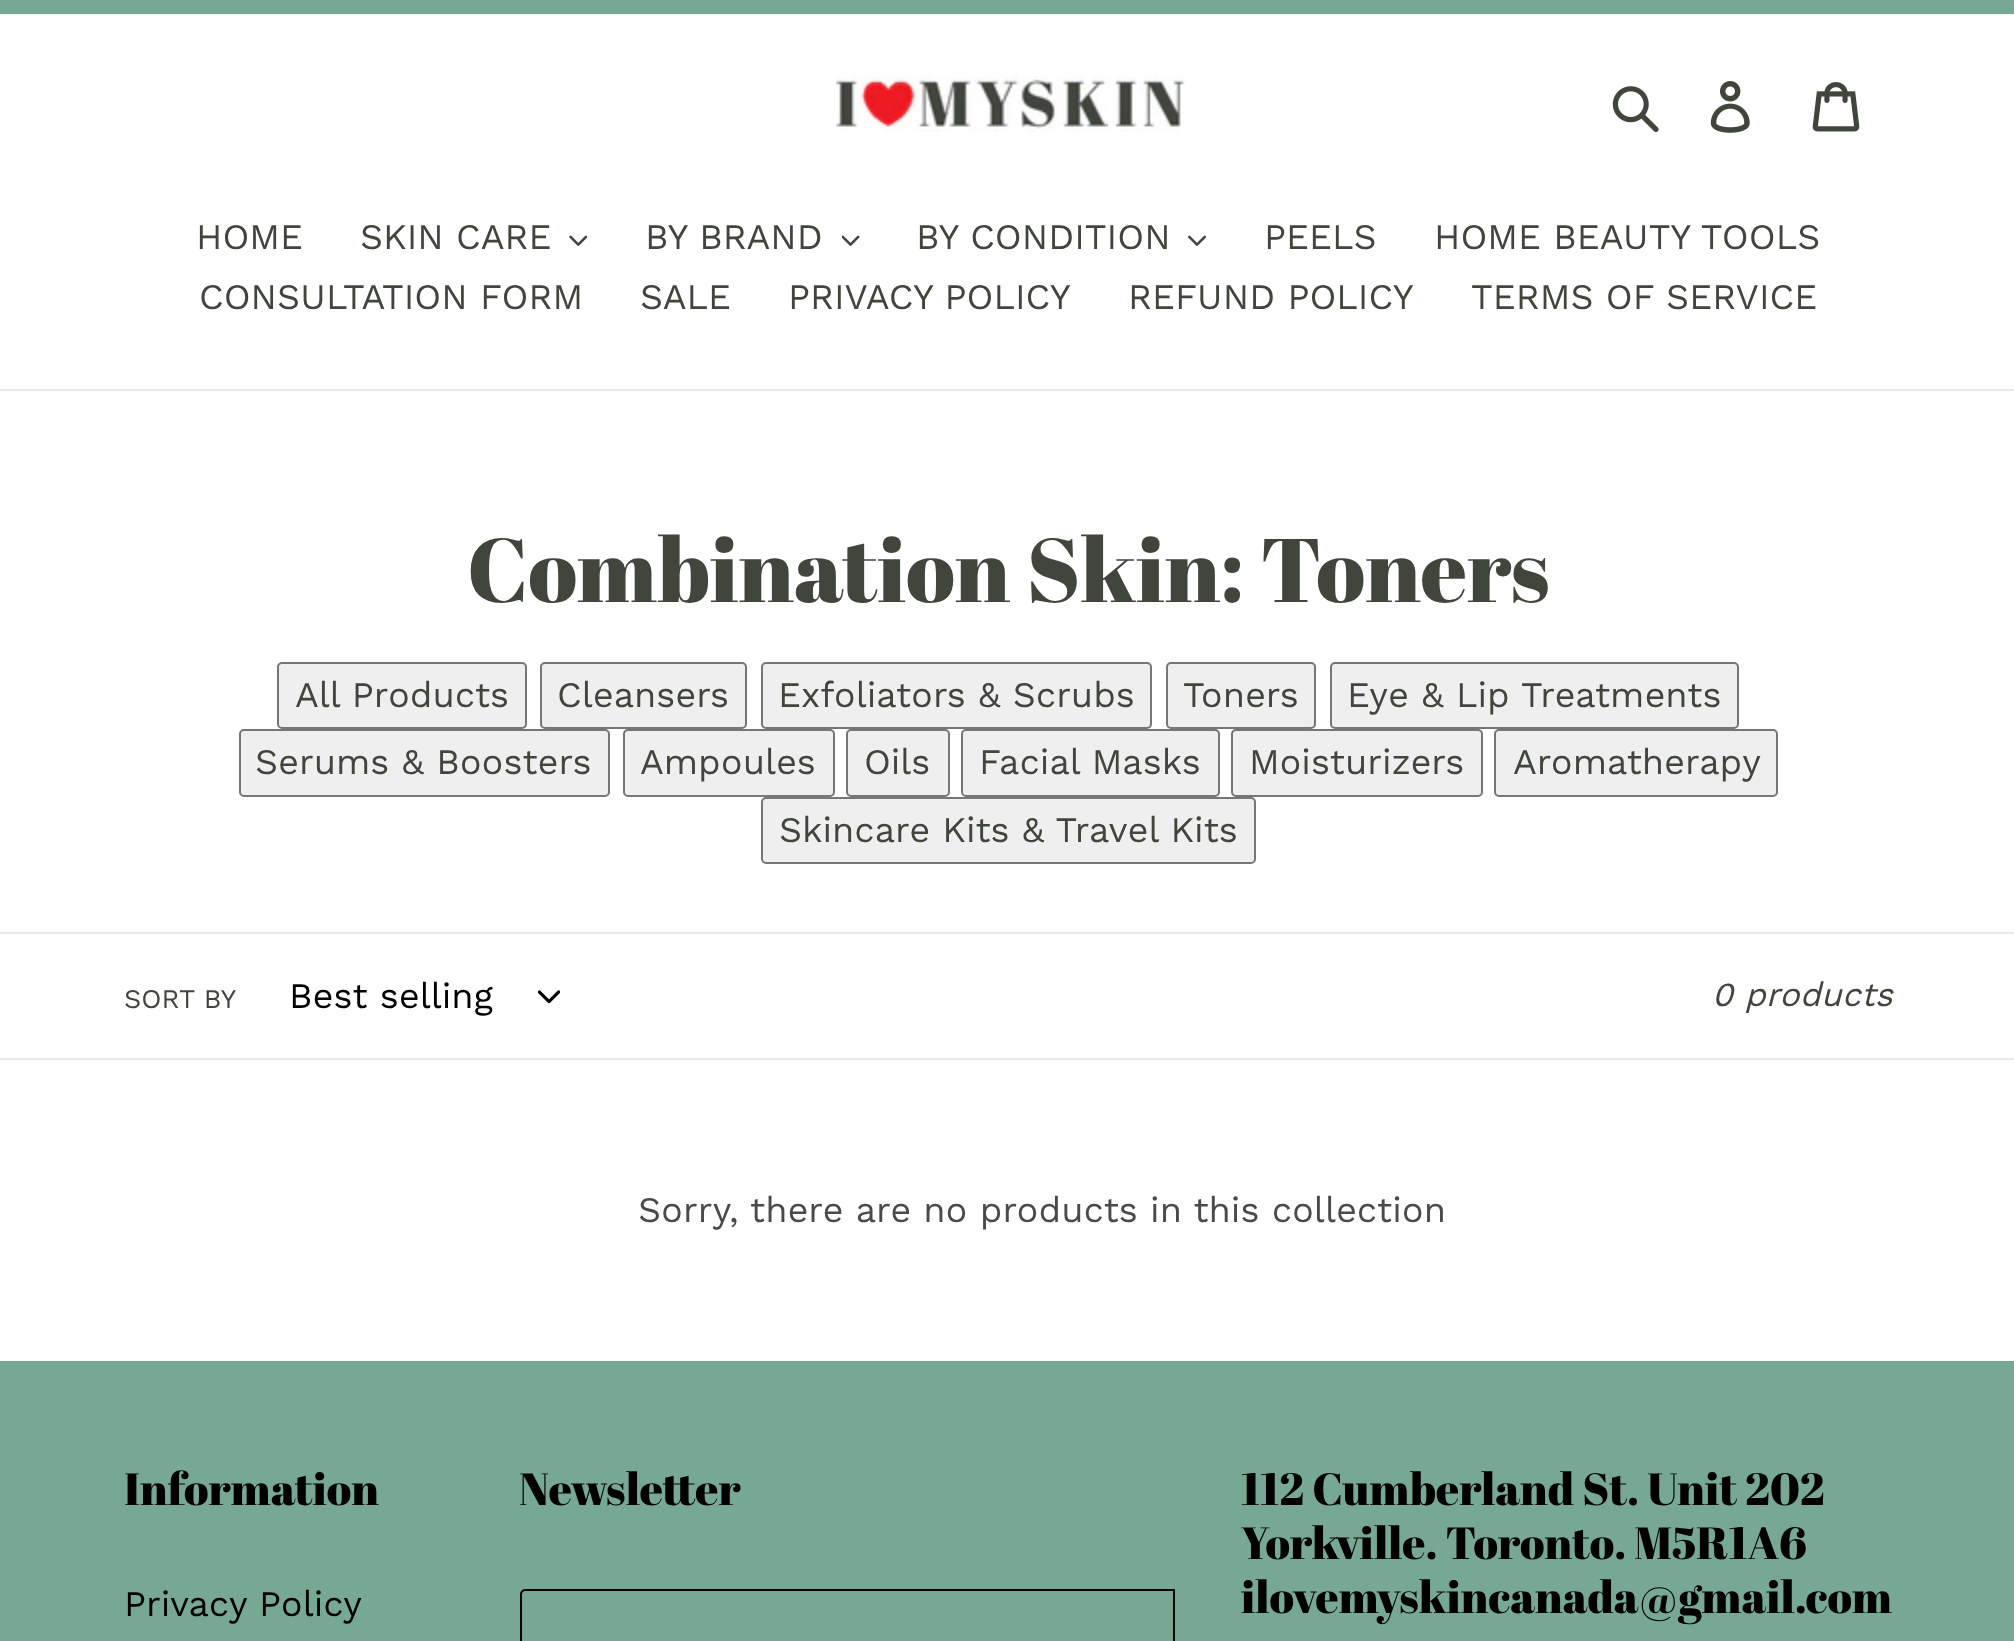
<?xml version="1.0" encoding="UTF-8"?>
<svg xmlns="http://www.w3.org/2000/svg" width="2014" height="1641">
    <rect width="100%" height="100%" fill="#FFFFFF"/>
    <rect x="0" y="0" width="2014" height="14" fill="#77A893"/>
    <image x="835" y="76" width="350" height="56" href="img_01.png"/>
    <image x="1612" y="86" width="47" height="47" href="img_02.png"/>
    <image x="1710" y="81" width="40" height="52" href="img_03.png"/>
    <image x="1812" y="82" width="48" height="50" href="img_04.png"/>
    <rect x="0" y="389" width="2014" height="2" fill="#E8E9EB"/>
    <text x="196" y="249" font-family="Work Sans" font-size="36" fill="#41463D">HOME</text>
    <text x="360" y="249" font-family="Work Sans" font-size="36" fill="#41463D">SKIN CARE</text>
    <image x="569" y="235" width="18" height="11" href="img_05.png"/>
    <text x="645" y="249" font-family="Work Sans" font-size="36" fill="#41463D">BY BRAND</text>
    <image x="842" y="235" width="18" height="11" href="img_06.png"/>
    <text x="916" y="249" font-family="Work Sans" font-size="36" fill="#41463D">BY CONDITION</text>
    <image x="1188" y="235" width="18" height="11" href="img_07.png"/>
    <text x="1264" y="249" font-family="Work Sans" font-size="36" fill="#41463D">PEELS</text>
    <text x="1434" y="249" font-family="Work Sans" font-size="36" fill="#41463D">HOME BEAUTY TOOLS</text>
    <text x="199" y="309" font-family="Work Sans" font-size="36" fill="#41463D">CONSULTATION FORM</text>
    <text x="640" y="309" font-family="Work Sans" font-size="36" fill="#41463D">SALE</text>
    <text x="788" y="309" font-family="Work Sans" font-size="36" fill="#41463D">PRIVACY POLICY</text>
    <text x="1128" y="309" font-family="Work Sans" font-size="36" fill="#41463D">REFUND POLICY</text>
    <text x="1471" y="309" font-family="Work Sans" font-size="36" fill="#41463D">TERMS OF SERVICE</text>
    <text x="467" y="602" font-family="Abril Fatface" font-size="90" fill="#41463D">Combination Skin: Toners</text>
    <rect x="278" y="663" width="248" height="65" rx="4" fill="#EFEFEF" stroke="#767676" stroke-width="2"/>
    <text x="295" y="707" font-family="Work Sans" font-size="36" fill="#41463D">All Products</text>
    <rect x="541" y="663" width="205" height="65" rx="4" fill="#EFEFEF" stroke="#767676" stroke-width="2"/>
    <text x="557" y="707" font-family="Work Sans" font-size="36" fill="#41463D">Cleansers</text>
    <rect x="762" y="663" width="389" height="65" rx="4" fill="#EFEFEF" stroke="#767676" stroke-width="2"/>
    <text x="778" y="707" font-family="Work Sans" font-size="36" fill="#41463D">Exfoliators &amp; Scrubs</text>
    <rect x="1167" y="663" width="148" height="65" rx="4" fill="#EFEFEF" stroke="#767676" stroke-width="2"/>
    <text x="1183" y="707" font-family="Work Sans" font-size="36" fill="#41463D">Toners</text>
    <rect x="1331" y="663" width="407" height="65" rx="4" fill="#EFEFEF" stroke="#767676" stroke-width="2"/>
    <text x="1347" y="707" font-family="Work Sans" font-size="36" fill="#41463D">Eye &amp; Lip Treatments</text>
    <rect x="240" y="730" width="369" height="66" rx="4" fill="#EFEFEF" stroke="#767676" stroke-width="2"/>
    <text x="255" y="774" font-family="Work Sans" font-size="36" fill="#41463D">Serums &amp; Boosters</text>
    <rect x="624" y="730" width="210" height="66" rx="4" fill="#EFEFEF" stroke="#767676" stroke-width="2"/>
    <text x="640" y="774" font-family="Work Sans" font-size="36" fill="#41463D">Ampoules</text>
    <rect x="847" y="730" width="102" height="66" rx="4" fill="#EFEFEF" stroke="#767676" stroke-width="2"/>
    <text x="864" y="774" font-family="Work Sans" font-size="36" fill="#41463D">Oils</text>
    <rect x="962" y="730" width="257" height="66" rx="4" fill="#EFEFEF" stroke="#767676" stroke-width="2"/>
    <text x="979" y="774" font-family="Work Sans" font-size="36" fill="#41463D">Facial Masks</text>
    <rect x="1232" y="730" width="250" height="66" rx="4" fill="#EFEFEF" stroke="#767676" stroke-width="2"/>
    <text x="1249" y="774" font-family="Work Sans" font-size="36" fill="#41463D">Moisturizers</text>
    <rect x="1495" y="730" width="282" height="66" rx="4" fill="#EFEFEF" stroke="#767676" stroke-width="2"/>
    <text x="1513" y="774" font-family="Work Sans" font-size="36" fill="#41463D">Aromatherapy</text>
    <rect x="762" y="798" width="493" height="65" rx="4" fill="#EFEFEF" stroke="#767676" stroke-width="2"/>
    <text x="779" y="842" font-family="Work Sans" font-size="36" fill="#41463D">Skincare Kits &amp; Travel Kits</text>
    <rect x="0" y="932" width="2014" height="2" fill="#E8E9EB"/>
    <rect x="0" y="1058" width="2014" height="2" fill="#E8E9EB"/>
    <text x="124" y="1008" font-family="Work Sans" font-size="27" fill="#41463D">SORT BY</text>
    <text x="289" y="1008" font-family="Work Sans" font-size="36" fill="#000000">Best selling</text>
    <image x="538" y="990" width="22" height="14" href="img_08.png"/>
    <text x="1712" y="1006" font-family="Work Sans" font-size="33.75" font-style="italic" fill="#41463D">0 products</text>
    <text x="638" y="1222" font-family="Work Sans" font-size="36" fill="#494B49">Sorry, there are no products in this collection</text>
    <rect x="0" y="1361" width="2014" height="280" fill="#77A893"/>
    <text x="124" y="1505" font-family="Abril Fatface" font-size="45" fill="#000000">Information</text>
    <text x="124" y="1616" font-family="Work Sans" font-size="36" fill="#000000">Privacy Policy</text>
    <text x="519" y="1505" font-family="Abril Fatface" font-size="45" fill="#000000">Newsletter</text>
    <path d="M 525 1590 H 1174 V 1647 H 525 C 523 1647 521 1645 521 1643 V 1594 C 521 1592 523 1590 525 1590 Z" fill="none" stroke="#000000" stroke-width="2"/>
    <text font-family="Abril Fatface" font-size="45" fill="#000000">
        <tspan x="1241" y="1505">112 Cumberland St. Unit 202</tspan>
        <tspan x="1241" y="1559">Yorkville. Toronto. M5R1A6</tspan>
        <tspan x="1241" y="1613">ilovemyskincanada@gmail.com</tspan>
    </text>
</svg>
